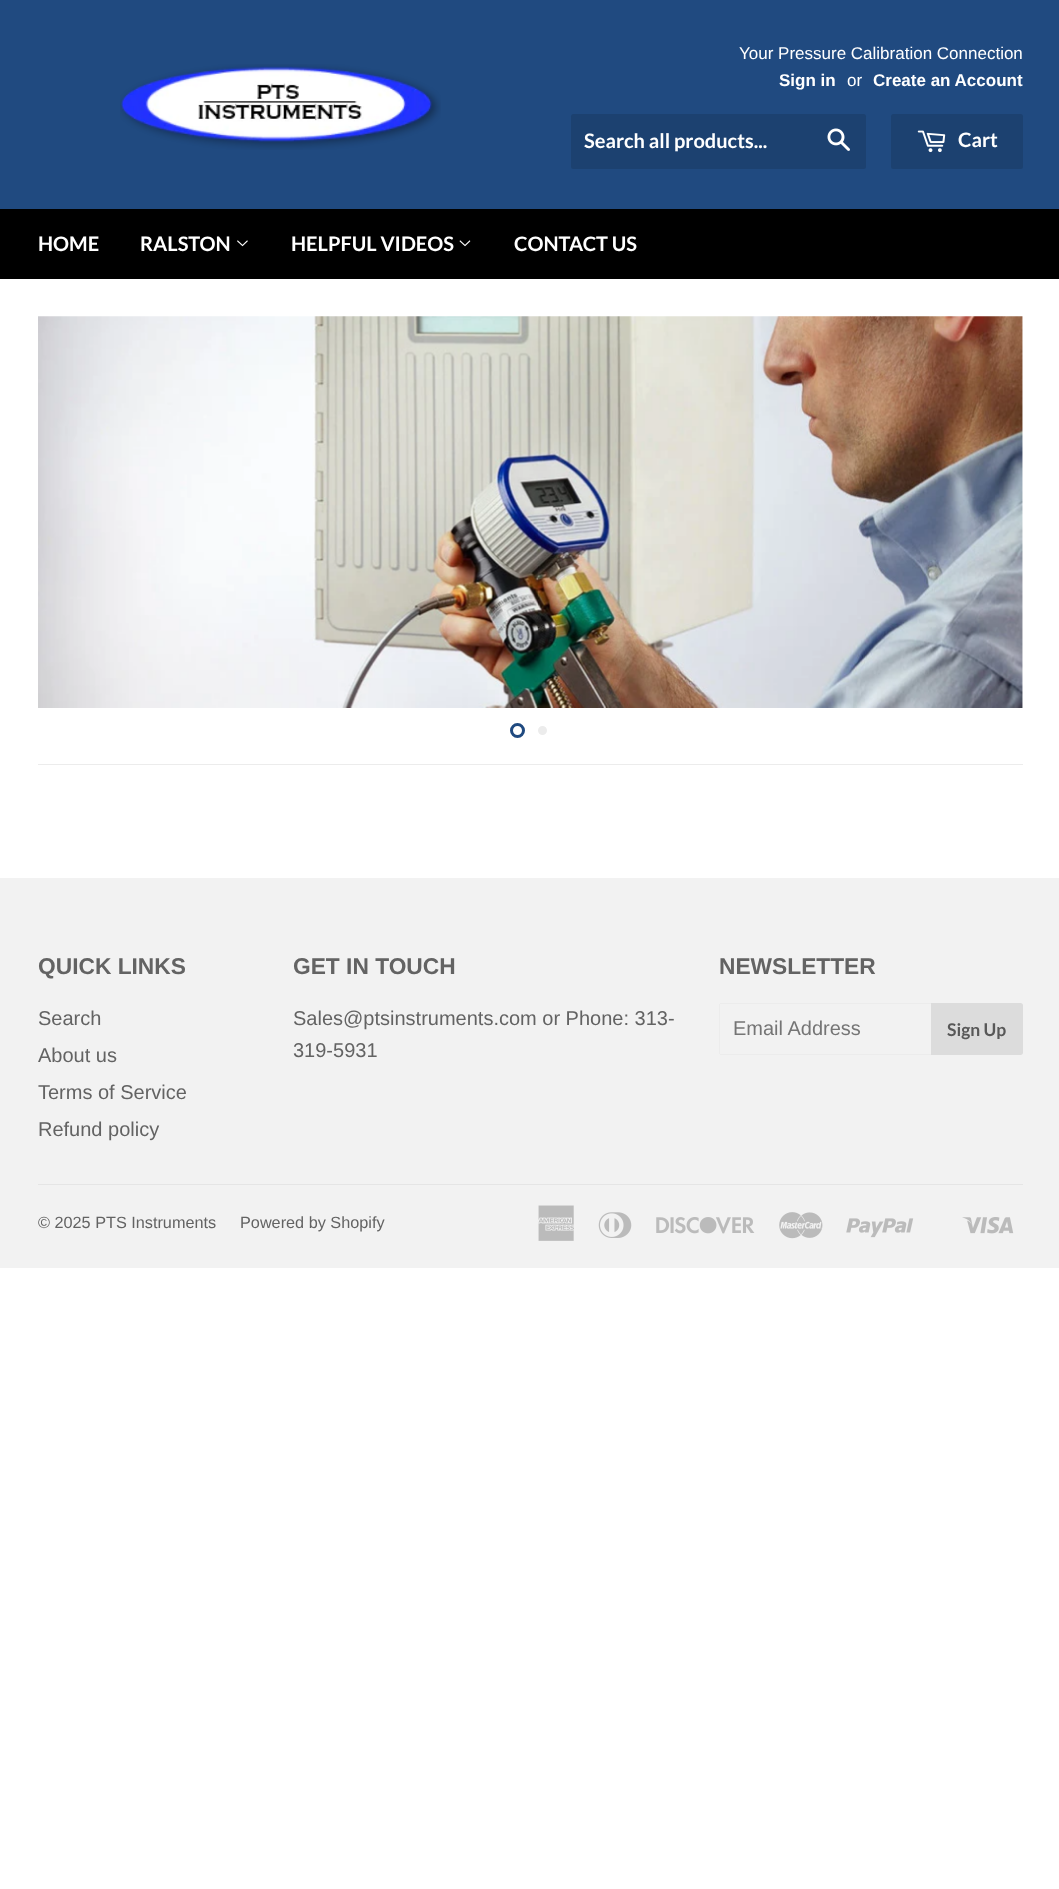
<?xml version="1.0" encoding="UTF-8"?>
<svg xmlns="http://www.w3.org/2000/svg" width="1059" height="1889">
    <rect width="100%" height="100%" fill="#FFFFFF"/>
    <rect x="0" y="0" width="1059" height="209" fill="#204A80"/>
    <image x="120" y="64" width="321" height="86" href="img_01.png"/>
    <text x="739" y="59" font-family="Liberation Sans" font-size="17" fill="#FFFFFF">Your Pressure Calibration Connection</text>
    <text x="779" y="86" font-family="Liberation Sans" font-size="17" font-weight="700" fill="#FFFFFF">Sign in</text>
    <text x="847" y="86" font-family="Liberation Sans" font-size="17" fill="#FFFFFF">or</text>
    <text x="873" y="86" font-family="Liberation Sans" font-size="17" font-weight="700" fill="#FFFFFF">Create an Account</text>
    <rect x="571" y="114" width="295" height="55" rx="2.5" fill="#1C4170"/>
    <text x="584" y="148" font-family="Lato" font-size="20" font-weight="700" fill="#FFFFFF">Search all products...</text>
    <image x="827" y="128" width="23" height="23" href="img_02.png"/>
    <rect x="891" y="114" width="132" height="55" rx="2.5" fill="#1C4170"/>
    <image x="917" y="130" width="29" height="23" href="img_03.png"/>
    <text x="958" y="147" font-family="Lato" font-size="20" font-weight="700" fill="#FFFFFF">Cart</text>
    <rect x="0" y="209" width="1059" height="70" fill="#000000"/>
    <text x="38" y="251" font-family="Lato" font-size="20" font-weight="700" fill="#FFFFFF">HOME</text>
    <text x="140" y="251" font-family="Lato" font-size="20" font-weight="700" fill="#FFFFFF">RALSTON</text>
    <image x="237" y="240" width="11" height="7" href="img_04.png"/>
    <text x="291" y="251" font-family="Lato" font-size="20" font-weight="700" fill="#FFFFFF">HELPFUL VIDEOS</text>
    <image x="459" y="240" width="12" height="7" href="img_05.png"/>
    <text x="514" y="251" font-family="Lato" font-size="20" font-weight="700" fill="#FFFFFF">CONTACT US</text>
    <image x="38" y="316" width="985" height="392" href="img_06.png"/>
    <circle cx="517.5" cy="730.5" r="6" fill="none" stroke="#204A80" stroke-width="3"/>
    <circle cx="542.5" cy="730.5" r="6" fill="#ECECEC" stroke="#FFFFFF" stroke-width="3"/>
    <rect x="38" y="764" width="985" height="1" fill="#ECECEC"/>
    <rect x="0" y="878" width="1059" height="390" fill="#F2F2F2"/>
    <text x="38" y="974" font-family="Liberation Sans" font-size="22.75" font-weight="700" fill="#636363">QUICK LINKS</text>
    <text font-family="Liberation Sans" font-size="20" fill="#636363">
        <tspan x="38" y="1025">Search</tspan>
        <tspan x="38" y="1062">About us</tspan>
        <tspan x="38" y="1099">Terms of Service</tspan>
        <tspan x="38" y="1136">Refund policy</tspan>
    </text>
    <text x="293" y="974" font-family="Liberation Sans" font-size="22.75" font-weight="700" fill="#636363">GET IN TOUCH</text>
    <text font-family="Liberation Sans" font-size="20" fill="#636363">
        <tspan x="293" y="1025">Sales@ptsinstruments.com or Phone: 313-</tspan>
        <tspan x="293" y="1057">319-5931</tspan>
    </text>
    <text x="719" y="974" font-family="Liberation Sans" font-size="22.75" font-weight="700" fill="#636363">NEWSLETTER</text>
    <rect x="720" y="1003" width="211" height="1" fill="#ECECEC"/>
    <rect x="720" y="1054" width="211" height="1" fill="#ECECEC"/>
    <rect x="719" y="1004" width="1" height="50" fill="#ECECEC"/>
    <text x="733" y="1035" font-family="Liberation Sans" font-size="20" fill="#757575">Email Address</text>
    <path d="M 931 1003 H 1020.5 C 1022 1003 1023 1004 1023 1005.5 V 1052.5 C 1023 1054 1022 1055 1020.5 1055 H 931 Z" fill="#DCDCDC"/>
    <text x="947" y="1036" font-family="Lato" font-size="17.5" font-weight="700" fill="#585858">Sign Up</text>
    <rect x="38" y="1184" width="985" height="1" fill="#E5E5E5"/>
    <text x="38" y="1228" font-family="Liberation Sans" font-size="16.25" fill="#636363">© 2025 PTS Instruments</text>
    <text x="240" y="1228" font-family="Liberation Sans" font-size="16.25" fill="#636363">Powered by Shopify</text>
    <image x="538" y="1205" width="36" height="36" href="img_07.png"/>
    <image x="598" y="1212" width="34" height="26" href="img_08.png"/>
    <image x="656" y="1217" width="99" height="17" href="img_09.png"/>
    <image x="779" y="1212" width="44" height="27" href="img_10.png"/>
    <image x="846" y="1218" width="68" height="20" href="img_11.png"/>
    <image x="962" y="1217" width="52" height="17" href="img_12.png"/>
</svg>
